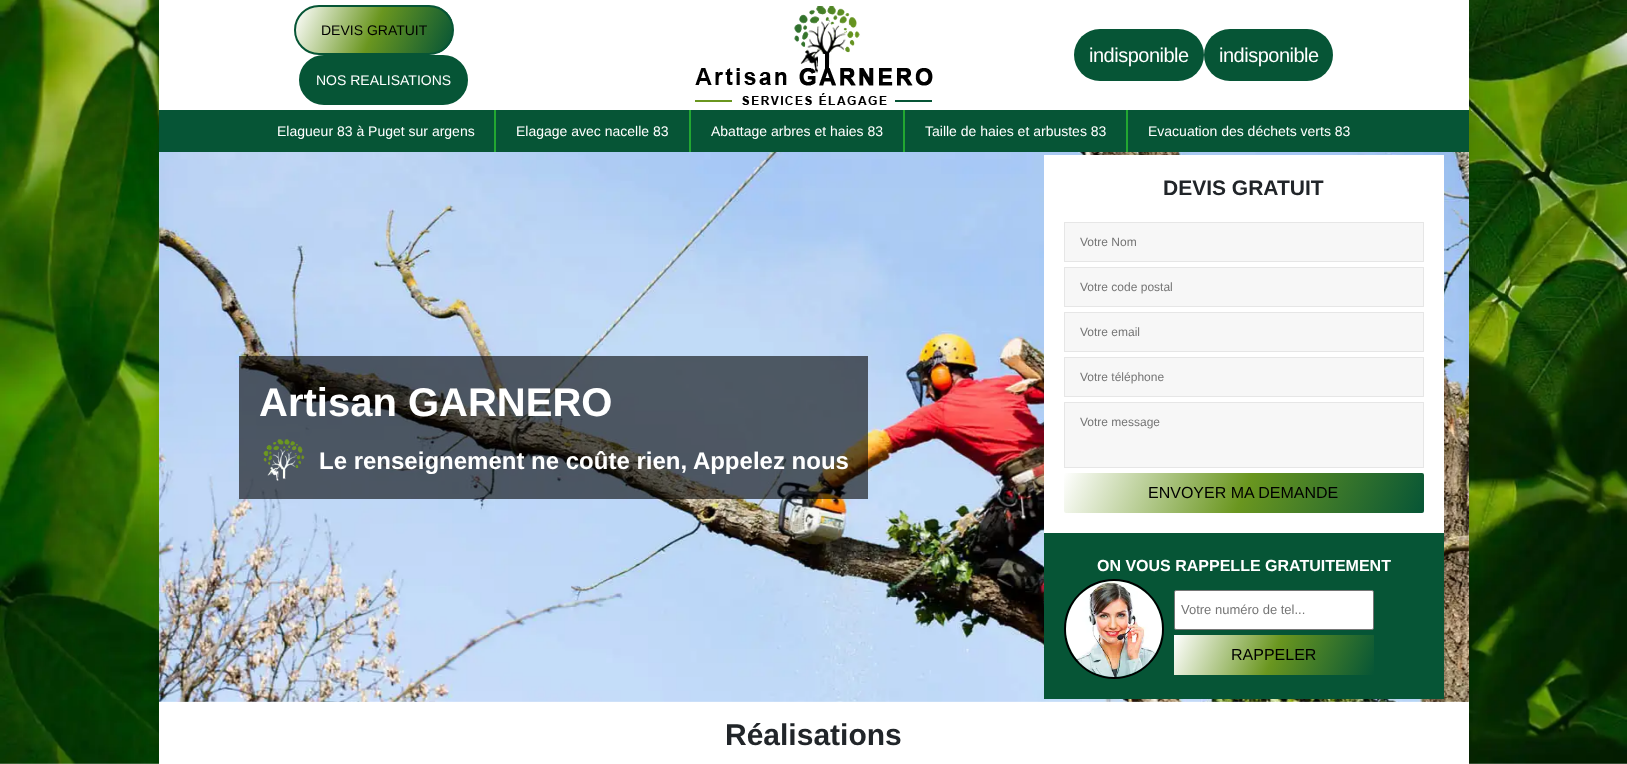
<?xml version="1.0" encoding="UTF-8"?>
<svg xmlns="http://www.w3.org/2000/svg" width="1627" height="764">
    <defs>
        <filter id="blur1" x="-50%" y="-200%" width="200%" height="500%"><feGaussianBlur stdDeviation="7.5"/></filter>
        <clipPath id="clip1"><rect x="294" y="5" width="160" height="50" rx="25"/></clipPath>
        <linearGradient id="g1" gradientUnits="userSpaceOnUse" x1="300" y1="-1.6" x2="448" y2="62"><stop offset="0" stop-color="#FFFFFF"/><stop offset="0.5" stop-color="#6A961F"/><stop offset="1" stop-color="#065536"/></linearGradient>
        <linearGradient id="g2" gradientUnits="userSpaceOnUse" x1="1084" y1="425" x2="1404" y2="561"><stop offset="0" stop-color="#FFFFFF"/><stop offset="0.5" stop-color="#6A961F"/><stop offset="1" stop-color="#065536"/></linearGradient>
        <linearGradient id="g3" gradientUnits="userSpaceOnUse" x1="1182" y1="616" x2="1366" y2="694"><stop offset="0" stop-color="#FFFFFF"/><stop offset="0.5" stop-color="#6A961F"/><stop offset="1" stop-color="#065536"/></linearGradient>
    </defs>
    <rect width="100%" height="100%" fill="#FFFFFF"/>
    <image x="0" y="0" width="1627" height="764" href="img_01.png"/>
    <rect x="159" y="0" width="1310" height="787" fill="#000000" fill-opacity="0.1" filter="url(#blur1)"/>
    <rect x="159" y="0" width="1310" height="764" fill="#FFFFFF"/>
    <g clip-path="url(#clip1)">
        <rect x="296" y="7" width="156" height="46" fill="url(#g1)"/>
    </g>
    <rect x="295" y="6" width="158" height="48" rx="24" fill="none" stroke="#065536" stroke-width="2"/>
    <text x="321" y="35" font-family="Liberation Sans" font-size="14" fill="#000000">DEVIS GRATUIT</text>
    <rect x="300" y="56" width="167" height="48" rx="24" fill="#065536" stroke="#065536" stroke-width="2"/>
    <text x="316" y="85" font-family="Liberation Sans" font-size="14" fill="#FFFFFF">NOS REALISATIONS</text>
    <image x="695" y="6" width="238" height="99" href="img_02.png"/>
    <rect x="1074" y="29" width="130" height="52" rx="26" fill="#065536"/>
    <text x="1089" y="62" font-family="Liberation Sans" font-size="20" letter-spacing="-0.5" fill="#FFFFFF">indisponible</text>
    <rect x="1204" y="29" width="129" height="52" rx="26" fill="#065536"/>
    <text x="1219" y="62" font-family="Liberation Sans" font-size="20" letter-spacing="-0.5" fill="#FFFFFF">indisponible</text>
    <rect x="159" y="110" width="1310" height="42" fill="#065536"/>
    <rect x="494" y="110" width="2" height="42" fill="#22A731"/>
    <text x="277" y="136" font-family="Liberation Sans" font-size="14" fill="#FFFFFF">Elagueur 83 à Puget sur argens</text>
    <rect x="689" y="110" width="2" height="42" fill="#22A731"/>
    <text x="516" y="136" font-family="Liberation Sans" font-size="14" fill="#FFFFFF">Elagage avec nacelle 83</text>
    <rect x="903" y="110" width="2" height="42" fill="#22A731"/>
    <text x="711" y="136" font-family="Liberation Sans" font-size="14" fill="#FFFFFF">Abattage arbres et haies 83</text>
    <rect x="1126" y="110" width="2" height="42" fill="#22A731"/>
    <text x="925" y="136" font-family="Liberation Sans" font-size="14" fill="#FFFFFF">Taille de haies et arbustes 83</text>
    <text x="1148" y="136" font-family="Liberation Sans" font-size="14" fill="#FFFFFF">Evacuation des déchets verts 83</text>
    <image x="159" y="152" width="1310" height="550" href="img_03.png"/>
    <rect x="239" y="356" width="629" height="143" fill="#000000" fill-opacity="0.6"/>
    <text x="259" y="416" font-family="Liberation Sans" font-size="40" font-weight="700" fill="#FFFFFF">Artisan GARNERO</text>
    <image x="263" y="439" width="42" height="42" href="img_04.png"/>
    <text x="319" y="469" font-family="Liberation Sans" font-size="24" font-weight="700" fill="#FFFFFF">Le renseignement ne coûte rien, Appelez nous</text>
    <rect x="1044" y="155" width="400" height="378" fill="#FFFFFF"/>
    <text x="1163" y="195" font-family="Liberation Sans" font-size="21" font-weight="700" fill="#212529">DEVIS GRATUIT</text>
    <rect x="1064.5" y="222.5" width="359" height="39" fill="#F7F7F7" stroke="#E6E6E6"/>
    <text x="1080" y="246" font-family="Liberation Sans" font-size="12" fill="#757575">Votre Nom</text>
    <rect x="1064.5" y="267.5" width="359" height="39" fill="#F7F7F7" stroke="#E6E6E6"/>
    <text x="1080" y="291" font-family="Liberation Sans" font-size="12" fill="#757575">Votre code postal</text>
    <rect x="1064.5" y="312.5" width="359" height="39" fill="#F7F7F7" stroke="#E6E6E6"/>
    <text x="1080" y="336" font-family="Liberation Sans" font-size="12" fill="#757575">Votre email</text>
    <rect x="1064.5" y="357.5" width="359" height="39" fill="#F7F7F7" stroke="#E6E6E6"/>
    <text x="1080" y="381" font-family="Liberation Sans" font-size="12" fill="#757575">Votre téléphone</text>
    <rect x="1064.5" y="402.5" width="359" height="65" fill="#F7F7F7" stroke="#E6E6E6"/>
    <text x="1080" y="426" font-family="Liberation Sans" font-size="12" fill="#757575">Votre message</text>
    <rect x="1064" y="473" width="360" height="40" rx="2" fill="url(#g2)"/>
    <text x="1148" y="498" font-family="Liberation Sans" font-size="16" fill="#000000">ENVOYER MA DEMANDE</text>
    <rect x="1044" y="533" width="400" height="166" fill="#065536"/>
    <text x="1097" y="571" font-family="Liberation Sans" font-size="16" font-weight="700" fill="#FFFFFF">ON VOUS RAPPELLE GRATUITEMENT</text>
    <circle cx="1114" cy="629" r="49" fill="none" stroke="#000000" stroke-width="2"/>
    <image x="1066" y="581" width="96" height="96" href="img_05.png"/>
    <rect x="1174.5" y="590.5" width="199" height="39" rx="1.5" fill="#FFFFFF" stroke="#767676"/>
    <text x="1181" y="614" font-family="Liberation Sans" font-size="13" fill="#757575">Votre numéro de tel...</text>
    <rect x="1174" y="635" width="200" height="40" fill="url(#g3)"/>
    <text x="1231" y="660" font-family="Liberation Sans" font-size="16" fill="#000000">RAPPELER</text>
    <text x="725" y="745" font-family="Liberation Sans" font-size="30" font-weight="700" fill="#212529">Réalisations</text>
</svg>
